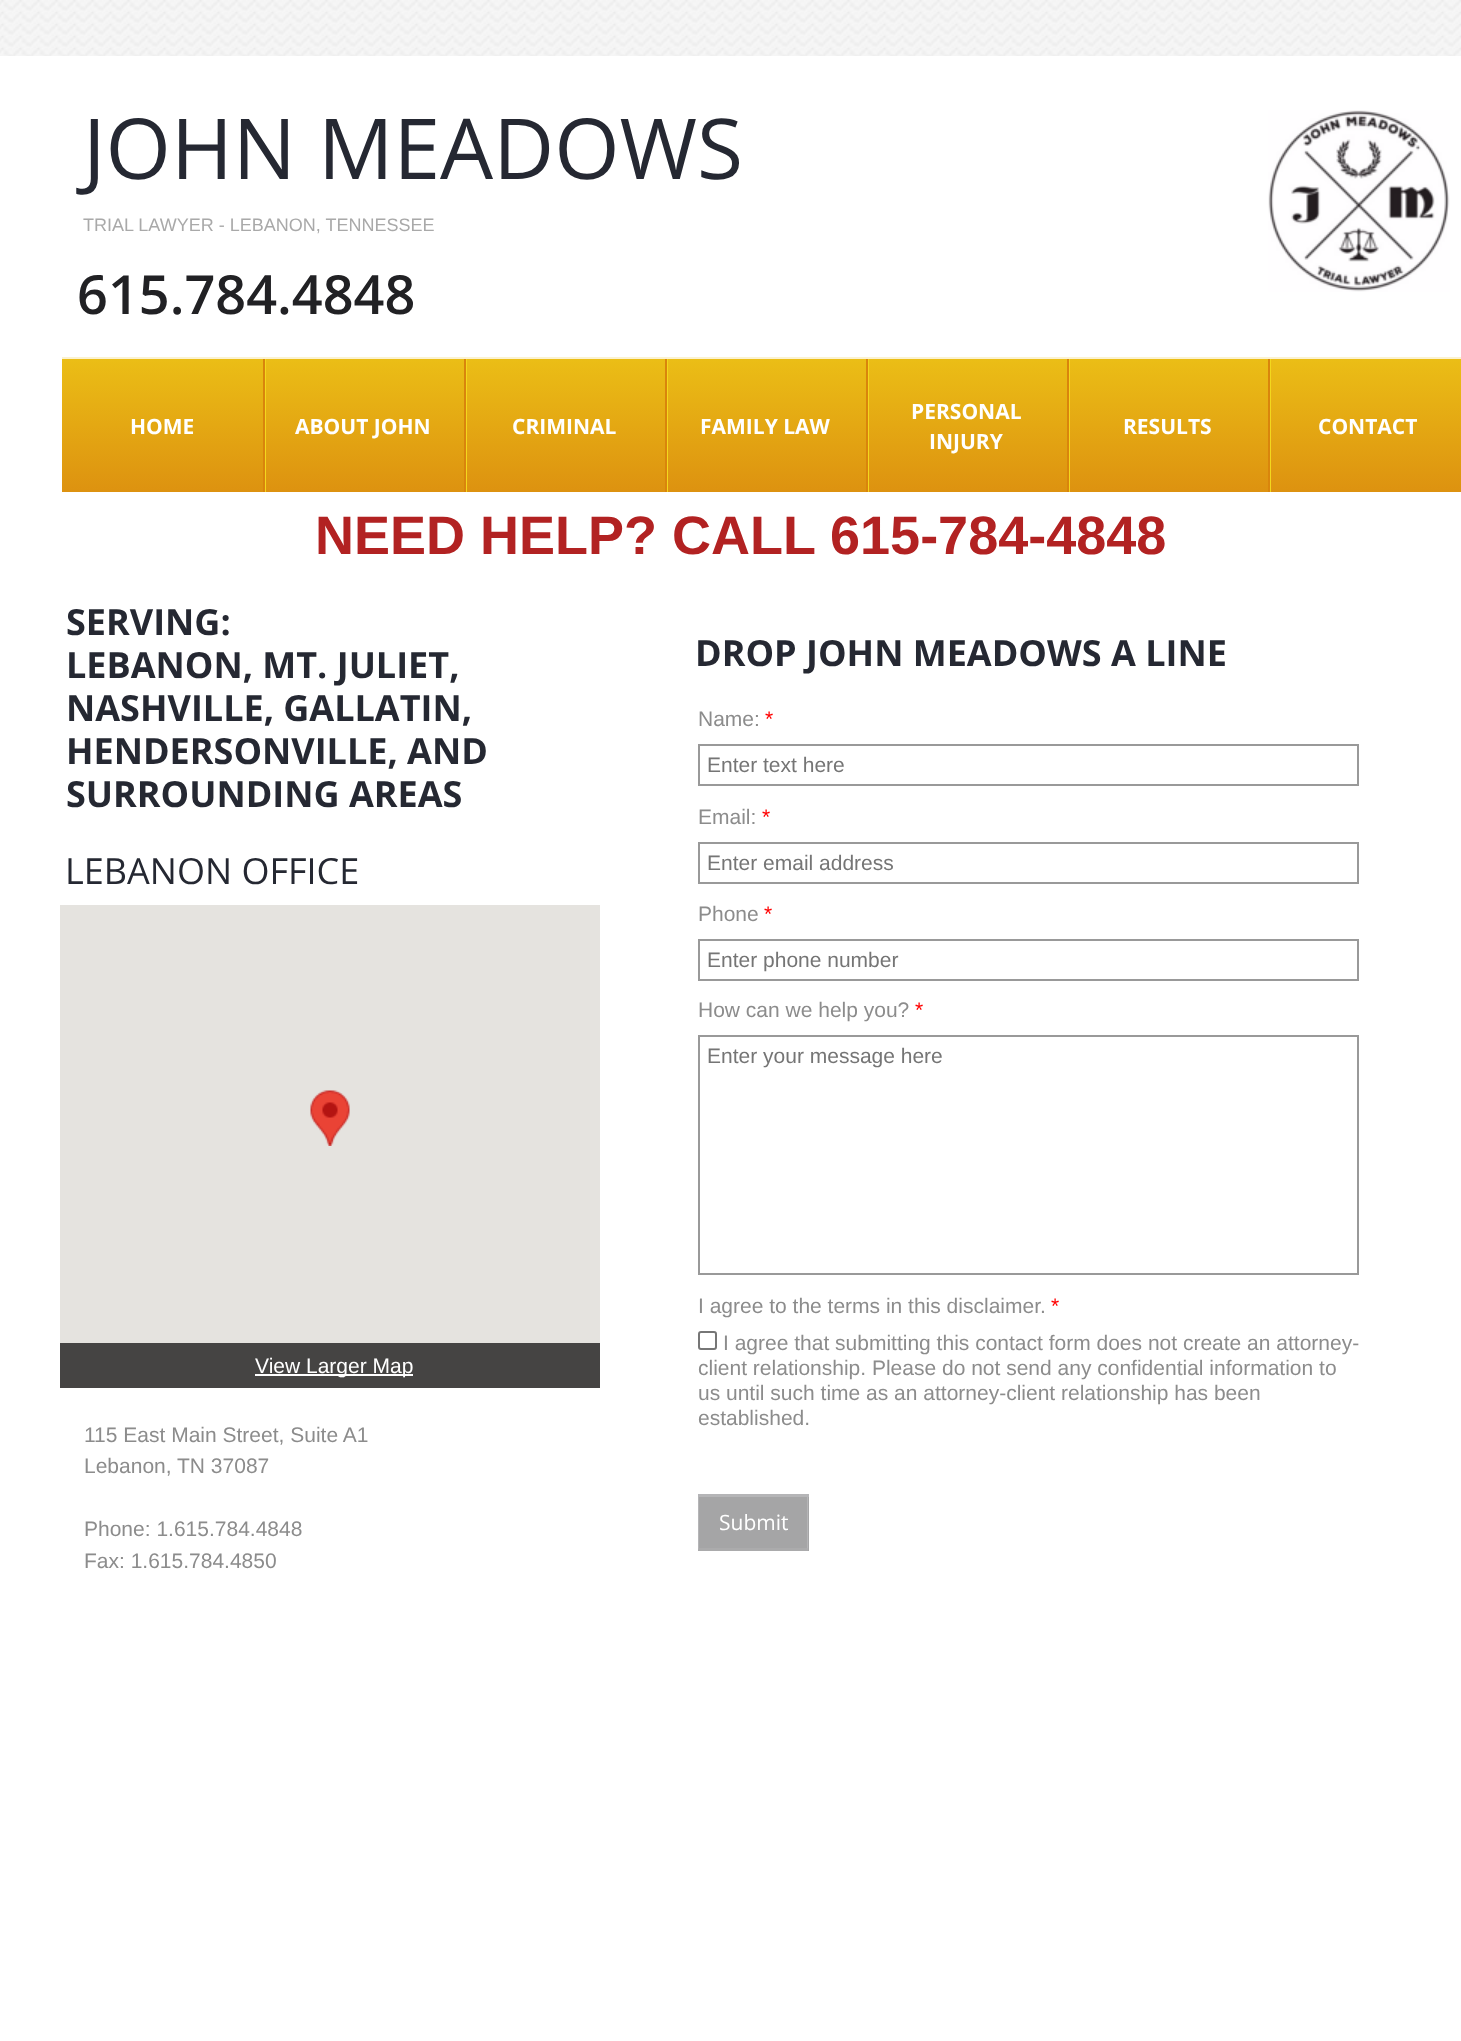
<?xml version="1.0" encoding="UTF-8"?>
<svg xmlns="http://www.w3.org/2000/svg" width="1461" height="2041">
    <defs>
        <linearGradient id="g1" gradientUnits="userSpaceOnUse" x1="765" y1="358" x2="765" y2="492"><stop offset="0" stop-color="#EBBE16"/><stop offset="1" stop-color="#DD9210"/></linearGradient>
    </defs>
    <rect width="100%" height="100%" fill="#FFFFFF"/>
    <image x="0" y="0" width="1461" height="56" href="img_01.png"/>
    <text x="83" y="179" font-family="Open Sans" font-size="84" fill="#252832">JOHN MEADOWS</text>
    <text x="83" y="231" font-family="Liberation Sans" font-size="18" fill="#A9A9A9">TRIAL LAWYER - LEBANON, TENNESSEE</text>
    <image x="1268" y="110" width="182" height="182" href="img_02.png"/>
    <text x="77" y="314" font-family="Open Sans" font-size="54" font-weight="600" fill="#212124">615.784.4848</text>
    <rect x="62" y="359" width="1399" height="133" fill="url(#g1)"/>
    <rect x="62" y="357" width="1399" height="2" fill="#FBF2D0"/>
    <text x="130" y="434" font-family="Open Sans" font-size="21" font-weight="700" fill="#FFFFFF">HOME</text>
    <rect x="265" y="359" width="1" height="133" fill="#F3D71D"/>
    <rect x="263" y="359" width="2" height="133" fill="#D9850C"/>
    <text x="295" y="434" font-family="Open Sans" font-size="21" font-weight="700" fill="#FFFFFF">ABOUT JOHN</text>
    <rect x="466" y="359" width="1" height="133" fill="#F3D71D"/>
    <rect x="464" y="359" width="2" height="133" fill="#D9850C"/>
    <text x="512" y="434" font-family="Open Sans" font-size="21" font-weight="700" fill="#FFFFFF">CRIMINAL</text>
    <rect x="667" y="359" width="1" height="133" fill="#F3D71D"/>
    <rect x="665" y="359" width="2" height="133" fill="#D9850C"/>
    <text x="700" y="434" font-family="Open Sans" font-size="21" font-weight="700" fill="#FFFFFF">FAMILY LAW</text>
    <rect x="868" y="359" width="1" height="133" fill="#F3D71D"/>
    <rect x="866" y="359" width="2" height="133" fill="#D9850C"/>
    <text x="911" y="419" font-family="Open Sans" font-size="21" font-weight="700" fill="#FFFFFF">PERSONAL</text>
    <text x="929" y="449" font-family="Open Sans" font-size="21" font-weight="700" fill="#FFFFFF">INJURY</text>
    <rect x="1069" y="359" width="1" height="133" fill="#F3D71D"/>
    <rect x="1067" y="359" width="2" height="133" fill="#D9850C"/>
    <text x="1123" y="434" font-family="Open Sans" font-size="21" font-weight="700" fill="#FFFFFF">RESULTS</text>
    <rect x="1270" y="359" width="1" height="133" fill="#F3D71D"/>
    <rect x="1268" y="359" width="2" height="133" fill="#D9850C"/>
    <text x="1318" y="434" font-family="Open Sans" font-size="21" font-weight="700" fill="#FFFFFF">CONTACT</text>
    <text x="315" y="554" font-family="Liberation Sans" font-size="54" font-weight="700" fill="#B22222">NEED HELP? CALL 615-784-4848</text>
    <text font-family="Open Sans" font-size="36" font-weight="700" fill="#252832">
        <tspan x="66" y="635">SERVING:</tspan>
        <tspan x="66" y="678">LEBANON, MT. JULIET,</tspan>
        <tspan x="66" y="721">NASHVILLE, GALLATIN,</tspan>
        <tspan x="66" y="764">HENDERSONVILLE, AND</tspan>
        <tspan x="66" y="807">SURROUNDING AREAS</tspan>
    </text>
    <text x="695" y="666" font-family="Open Sans" font-size="36" font-weight="700" fill="#252832">DROP JOHN MEADOWS A LINE</text>
    <text x="698" y="726" font-family="Liberation Sans" font-size="21" fill="#8C8C8C">Name:</text>
    <text x="765" y="726" font-family="Liberation Sans" font-size="21" fill="#FF0000">*</text>
    <rect x="699" y="745" width="659" height="40" fill="none" stroke="#999999" stroke-width="2"/>
    <text x="707" y="772" font-family="Liberation Sans" font-size="21" fill="#757575">Enter text here</text>
    <text x="65" y="884" font-family="Open Sans" font-size="36" fill="#252832">LEBANON OFFICE</text>
    <text x="698" y="824" font-family="Liberation Sans" font-size="21" fill="#8C8C8C">Email:</text>
    <text x="762" y="824" font-family="Liberation Sans" font-size="21" fill="#FF0000">*</text>
    <rect x="699" y="843" width="659" height="40" fill="none" stroke="#999999" stroke-width="2"/>
    <text x="707" y="870" font-family="Liberation Sans" font-size="21" fill="#757575">Enter email address</text>
    <text x="698" y="921" font-family="Liberation Sans" font-size="21" fill="#8C8C8C">Phone</text>
    <text x="764" y="921" font-family="Liberation Sans" font-size="21" fill="#FF0000">*</text>
    <rect x="699" y="940" width="659" height="40" fill="none" stroke="#999999" stroke-width="2"/>
    <text x="707" y="967" font-family="Liberation Sans" font-size="21" fill="#757575">Enter phone number</text>
    <text x="698" y="1017" font-family="Liberation Sans" font-size="21" fill="#8C8C8C">How can we help you?</text>
    <text x="915" y="1017" font-family="Liberation Sans" font-size="21" fill="#FF0000">*</text>
    <rect x="699" y="1036" width="659" height="238" fill="none" stroke="#999999" stroke-width="2"/>
    <text x="707" y="1063" font-family="Liberation Sans" font-size="21" fill="#757575">Enter your message here</text>
    <rect x="60" y="905" width="540" height="438" fill="#E5E3DF"/>
    <image x="310" y="1090" width="40" height="56" href="img_03.png"/>
    <rect x="60" y="1343" width="540" height="45" fill="#454443"/>
    <rect x="255" y="1374" width="158" height="2" fill="#FFFFFF"/>
    <text x="255" y="1373" font-family="Liberation Sans" font-size="21" fill="#FFFFFF">View Larger Map</text>
    <text x="698" y="1313" font-family="Liberation Sans" font-size="21" fill="#8C8C8C">I agree to the terms in this disclaimer.</text>
    <text x="1051" y="1313" font-family="Liberation Sans" font-size="21" fill="#FF0000">*</text>
    <rect x="699" y="1332" width="17" height="17" rx="2" fill="none" stroke="#767676" stroke-width="2"/>
    <text x="723" y="1350" font-family="Liberation Sans" font-size="21" fill="#8C8C8C">I agree that submitting this contact form does not create an attorney-</text>
    <text font-family="Liberation Sans" font-size="21" fill="#8C8C8C">
        <tspan x="698" y="1375">client relationship. Please do not send any confidential information to</tspan>
        <tspan x="698" y="1400">us until such time as an attorney-client relationship has been</tspan>
        <tspan x="698" y="1425">established.</tspan>
    </text>
    <text font-family="Liberation Sans" font-size="21" fill="#8C8C8C">
        <tspan x="84" y="1442">115 East Main Street, Suite A1</tspan>
        <tspan x="84" y="1473">Lebanon, TN 37087</tspan>
    </text>
    <text font-family="Liberation Sans" font-size="21" fill="#8C8C8C">
        <tspan x="84" y="1536">Phone: 1.615.784.4848</tspan>
        <tspan x="84" y="1568">Fax: 1.615.784.4850</tspan>
    </text>
    <rect x="698" y="1497" width="111" height="54" fill="#A5A5A6"/>
    <rect x="698" y="1494" width="111" height="3" fill="#B5B5B7"/>
    <path d="M 808 1494 V 1551 L 807 1548 V 1497 Z" fill="#B5B5B7"/>
    <path d="M 808 1551 H 698 L 699 1548 H 807 Z" fill="#B9B9B9" fill-opacity="0.3"/>
    <path d="M 698 1551 V 1494 L 699 1497 V 1548 Z" fill="#B5B5B7"/>
    <text x="719" y="1530" font-family="Open Sans" font-size="21" fill="#FFFFFF">Submit</text>
</svg>
